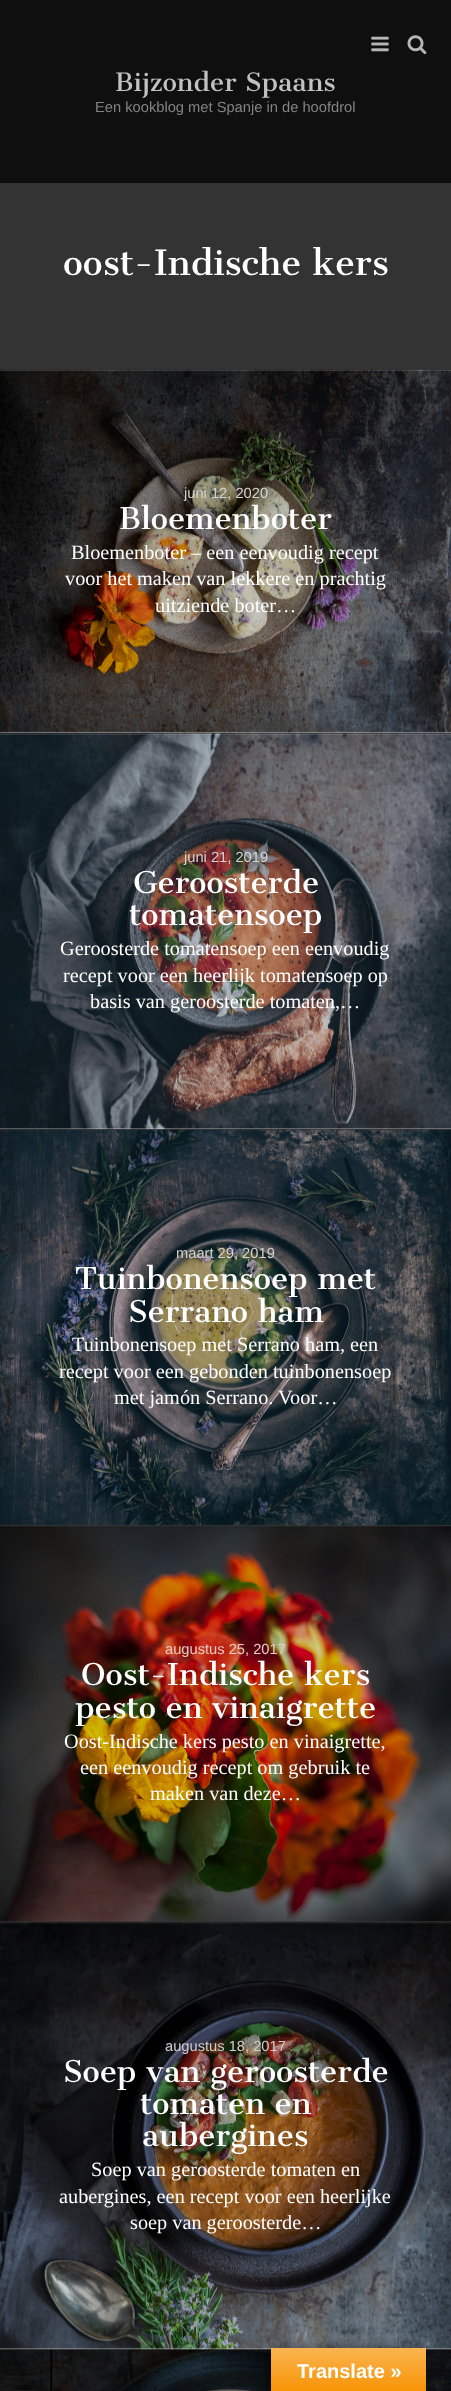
<?xml version="1.0" encoding="UTF-8"?>
<svg xmlns="http://www.w3.org/2000/svg" width="451" height="2391">
    <defs>
        <filter id="blur1" x="-50%" y="-200%" width="200%" height="500%"><feGaussianBlur stdDeviation="5.5"/></filter>
        <linearGradient id="g1" gradientUnits="userSpaceOnUse" x1="349" y1="2348" x2="349" y2="2391"><stop offset="0" stop-color="#FBB450"/><stop offset="1" stop-color="#F89406"/></linearGradient>
    </defs>
    <rect width="100%" height="100%" fill="#333333"/>
    <rect x="0" y="0" width="451" height="183" fill="#0F0F0F"/>
    <image x="371" y="36" width="18" height="16" href="img_01.png"/>
    <image x="407" y="35" width="20" height="20" href="img_02.png"/>
    <text x="115" y="91" font-family="Cantata One" font-size="24.75" fill="#C2C2C2">Bijzonder Spaans</text>
    <text x="95" y="112" font-family="Liberation Sans" font-size="14.7" fill="#848484">Een kookblog met Spanje in de hoofdrol</text>
    <text x="63" y="275" font-family="Cantata One" font-size="34" fill="#FFFFFF">oost-Indische kers</text>
    <rect x="0" y="370" width="451" height="363" fill="#CCCCCC"/>
    <image x="0" y="369" width="451" height="364" href="img_03.png"/>
    <text x="184" y="498" font-family="Liberation Sans" font-size="14.7" fill="#D5D3CF">juni 12, 2020</text>
    <text x="119" y="529" font-family="Cantata One" font-size="29.4" fill="#FFFFFF">Bloemenboter</text>
    <text x="71" y="559" font-family="Liberation Serif" font-size="20.3" fill="#FFFFFF">Bloemenboter – een eenvoudig recept</text>
    <text x="65" y="585" font-family="Liberation Serif" font-size="20.3" fill="#FFFFFF">voor het maken van lekkere en prachtig</text>
    <text x="155" y="612" font-family="Liberation Serif" font-size="20.3" fill="#FFFFFF">uitziende boter…</text>
    <rect x="0" y="734" width="451" height="395" fill="#CCCCCC"/>
    <image x="0" y="733" width="451" height="397" href="img_04.png"/>
    <text x="184" y="862" font-family="Liberation Sans" font-size="14.7" fill="#D5D3CF">juni 21, 2019</text>
    <text x="133" y="893" font-family="Cantata One" font-size="29.4" fill="#FFFFFF">Geroosterde</text>
    <text x="129" y="925" font-family="Cantata One" font-size="29.4" fill="#FFFFFF">tomatensoep</text>
    <text x="60" y="955" font-family="Liberation Serif" font-size="20.3" fill="#FFFFFF">Geroosterde tomatensoep een eenvoudig</text>
    <text x="63" y="982" font-family="Liberation Serif" font-size="20.3" fill="#FFFFFF">recept voor een heerlijk tomatensoep op</text>
    <text x="90" y="1008" font-family="Liberation Serif" font-size="20.3" fill="#FFFFFF">basis van geroosterde tomaten,…</text>
    <image x="0" y="1129" width="451" height="397" href="img_05.png"/>
    <text x="176" y="1258" font-family="Liberation Sans" font-size="14.7" fill="#D5D3CF">maart 29, 2019</text>
    <text x="75" y="1289" font-family="Cantata One" font-size="29.4" fill="#FFFFFF">Tuinbonensoep met</text>
    <text x="128" y="1322" font-family="Cantata One" font-size="29.4" fill="#FFFFFF">Serrano ham</text>
    <text x="72" y="1351" font-family="Liberation Serif" font-size="20.3" fill="#FFFFFF">Tuinbonensoep met Serrano ham, een</text>
    <text x="59" y="1378" font-family="Liberation Serif" font-size="20.3" fill="#FFFFFF">recept voor een gebonden tuinbonensoep</text>
    <text x="114" y="1404" font-family="Liberation Serif" font-size="20.3" fill="#FFFFFF">met jamón Serrano. Voor…</text>
    <image x="0" y="1526" width="451" height="396" href="img_06.png"/>
    <text x="165" y="1654" font-family="Liberation Sans" font-size="14.7" fill="#E7CBC6">augustus 25, 2017</text>
    <text x="81" y="1685" font-family="Cantata One" font-size="29.4" fill="#FFFFFF">Oost-Indische kers</text>
    <text x="75" y="1718" font-family="Cantata One" font-size="29.4" fill="#FFFFFF">pesto en vinaigrette</text>
    <text x="64" y="1748" font-family="Liberation Serif" font-size="20.3" fill="#FFFFFF">Oost-Indische kers pesto en vinaigrette,</text>
    <text x="80" y="1774" font-family="Liberation Serif" font-size="20.3" fill="#FFFFFF">een eenvoudig recept om gebruik te</text>
    <text x="150" y="1800" font-family="Liberation Serif" font-size="20.3" fill="#FFFFFF">maken van deze…</text>
    <rect x="0" y="1923" width="451" height="426" fill="#CCCCCC"/>
    <image x="0" y="1922" width="451" height="428" href="img_07.png"/>
    <text x="165" y="2051" font-family="Liberation Sans" font-size="14.7" fill="#CFCCCA">augustus 18, 2017</text>
    <text x="63" y="2082" font-family="Cantata One" font-size="29.4" fill="#FFFFFF">Soep van geroosterde</text>
    <text x="140" y="2114" font-family="Cantata One" font-size="29.4" fill="#FFFFFF">tomaten en</text>
    <text x="142" y="2146" font-family="Cantata One" font-size="29.4" fill="#FFFFFF">aubergines</text>
    <text x="91" y="2176" font-family="Liberation Serif" font-size="20.3" fill="#FFFFFF">Soep van geroosterde tomaten en</text>
    <text x="59" y="2203" font-family="Liberation Serif" font-size="20.3" fill="#FFFFFF">aubergines, een recept voor een heerlijke</text>
    <text x="130" y="2229" font-family="Liberation Serif" font-size="20.3" fill="#FFFFFF">soep van geroosterde…</text>
    <image x="0" y="2350" width="451" height="41" href="img_08.png"/>
    <rect x="271" y="2348" width="155" height="43" fill="#000000" fill-opacity="0.3" filter="url(#blur1)"/>
    <rect x="271" y="2348" width="155" height="43" fill="url(#g1)"/>
    <text x="297" y="2378" font-family="Liberation Sans" font-size="20" font-weight="700" fill="#FFFFFF">Translate »</text>
</svg>
